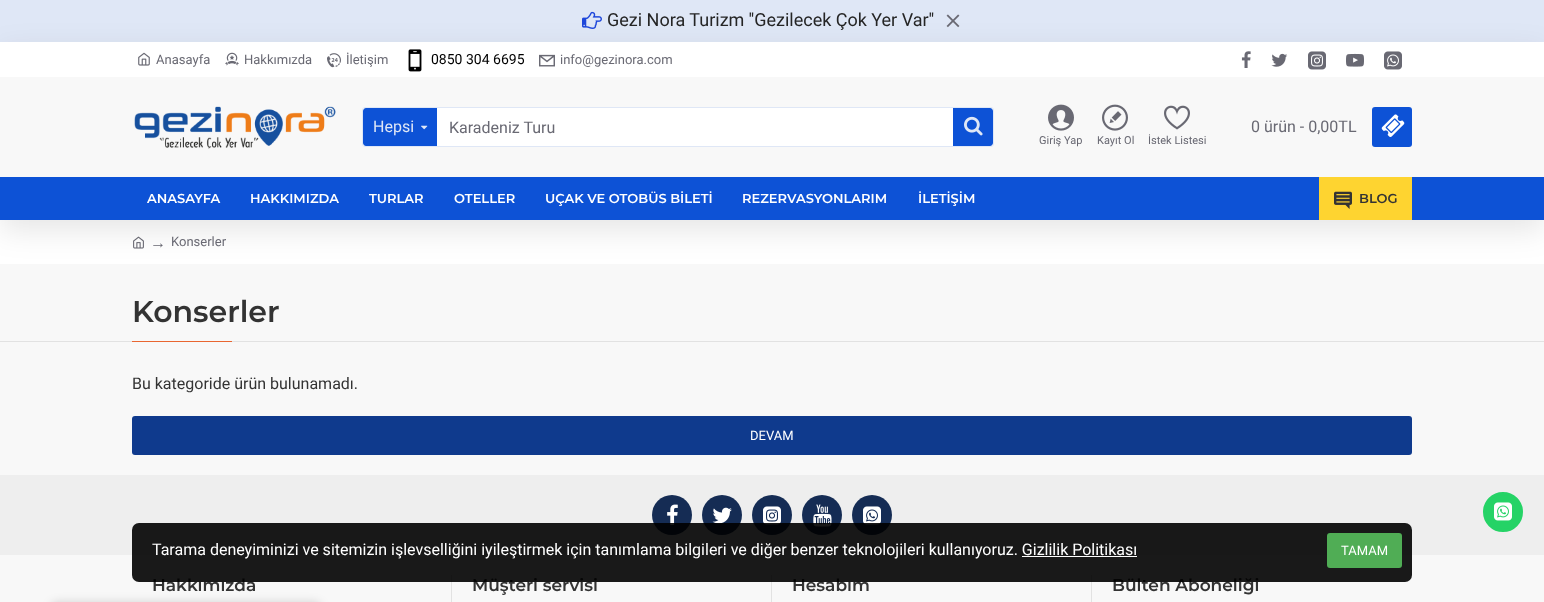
<?xml version="1.0" encoding="UTF-8"?>
<svg xmlns="http://www.w3.org/2000/svg" width="1544" height="602">
    <defs>
        <clipPath id="clip1"><path d="M 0 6 H 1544 V 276 H 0 Z M 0 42 H 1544 V 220 H 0 Z" clip-rule="evenodd"/></clipPath>
        <filter id="blur1" x="-50%" y="-200%" width="200%" height="500%"><feGaussianBlur stdDeviation="15"/></filter>
        <filter id="blur2" x="-50%" y="-200%" width="200%" height="500%"><feGaussianBlur stdDeviation="5"/></filter>
    </defs>
    <rect width="100%" height="100%" fill="#F8F8F8"/>
    <rect x="0" y="0" width="1544" height="42" fill="#DFE7F6"/>
    <image x="582" y="11" width="20" height="18" href="img_01.png"/>
    <text x="607" y="26" font-family="Roboto" font-size="18" fill="#252525">Gezi Nora Turizm ''Gezilecek Çok Yer Var''</text>
    <image x="946" y="14" width="14" height="14" href="img_02.png"/>
    <rect x="0" y="220" width="1544" height="44" fill="#FFFFFF"/>
    <image x="133" y="236" width="11" height="13" href="img_21.png"/>
    <g clip-path="url(#clip1)">
        <rect x="0" y="52" width="1544" height="178" fill="#000000" fill-opacity="0.1" filter="url(#blur1)"/>
    </g>
    <rect x="0" y="42" width="1544" height="35" fill="#FFFFFF"/>
    <image x="138" y="52" width="12" height="14" href="img_03.png"/>
    <text x="156" y="64" font-family="Roboto" font-size="13" fill="#696973">Anasayfa</text>
    <image x="225" y="52" width="14" height="14" href="img_04.png"/>
    <text x="244" y="64" font-family="Roboto" font-size="13" fill="#696973">Hakkımızda</text>
    <image x="327" y="53" width="14" height="15" href="img_05.png"/>
    <text x="346" y="64" font-family="Roboto" font-size="13" fill="#696973">İletişim</text>
    <image x="408" y="49" width="14" height="23" href="img_06.png"/>
    <text x="431" y="64" font-family="Roboto" font-size="14" fill="#000000">0850 304 6695</text>
    <image x="539" y="54" width="16" height="13" href="img_07.png"/>
    <text x="560" y="64" font-family="Roboto" font-size="13" fill="#696973">info@gezinora.com</text>
    <image x="1241" y="51" width="10" height="17" href="img_08.png"/>
    <image x="1271" y="53" width="17" height="14" href="img_09.png"/>
    <image x="1308" y="51" width="18" height="19" href="img_10.png"/>
    <image x="1346" y="53" width="18" height="14" href="img_11.png"/>
    <image x="1384" y="51" width="18" height="19" href="img_12.png"/>
    <image x="134" y="106" width="202" height="43" href="img_13.png"/>
    <rect x="362.5" y="107.5" width="631" height="39" rx="2.5" fill="none" stroke="#DFE7F6"/>
    <path d="M 366 108 H 437 V 146 H 366 C 364.5 146 363 144.5 363 143 V 111 C 363 109.5 364.5 108 366 108 Z" fill="#0D52D6"/>
    <text x="373" y="132" font-family="Roboto" font-size="16" fill="#DFE7F6">Hepsi</text>
    <image x="421" y="125" width="7" height="5" href="img_14.png"/>
    <rect x="437" y="108" width="516" height="38" fill="#FFFFFF"/>
    <text x="449" y="133" font-family="Roboto" font-size="16" fill="#696973">Karadeniz Turu</text>
    <path d="M 953 108 H 990 C 991.5 108 993 109.5 993 111 V 143 C 993 144.5 991.5 146 990 146 H 953 Z" fill="#0D52D6"/>
    <image x="964" y="116" width="19" height="20" href="img_15.png"/>
    <text x="1251" y="132" font-family="Roboto" font-size="16" fill="#696973">0 ürün - 0,00TL</text>
    <rect x="1372" y="107" width="40" height="40" rx="3" fill="#0D52D6"/>
    <image x="1381" y="114" width="24" height="23" href="img_16.png"/>
    <image x="1048" y="104" width="26" height="27" href="img_17.png"/>
    <text x="1039" y="144" font-family="Roboto" font-size="11" fill="#696973">Giriş Yap</text>
    <image x="1102" y="104" width="26" height="27" href="img_18.png"/>
    <text x="1097" y="144" font-family="Roboto" font-size="11" fill="#696973">Kayıt Ol</text>
    <image x="1164" y="105" width="26" height="25" href="img_19.png"/>
    <text x="1148" y="144" font-family="Roboto" font-size="11" fill="#696973">İstek Listesi</text>
    <rect x="0" y="177" width="1544" height="43" fill="#0D52D6"/>
    <text x="147" y="203" font-family="Montserrat" font-size="13" font-weight="600" fill="#FFFFFF">ANASAYFA</text>
    <text x="250" y="203" font-family="Montserrat" font-size="13" font-weight="600" fill="#FFFFFF">HAKKIMIZDA</text>
    <text x="369" y="203" font-family="Montserrat" font-size="13" font-weight="600" fill="#FFFFFF">TURLAR</text>
    <text x="454" y="203" font-family="Montserrat" font-size="13" font-weight="600" fill="#FFFFFF">OTELLER</text>
    <text x="545" y="203" font-family="Montserrat" font-size="13" font-weight="600" fill="#FFFFFF">UÇAK VE OTOBÜS BİLETİ</text>
    <text x="742" y="203" font-family="Montserrat" font-size="13" font-weight="600" fill="#FFFFFF">REZERVASYONLARIM</text>
    <text x="918" y="203" font-family="Montserrat" font-size="13" font-weight="600" fill="#FFFFFF">İLETİŞİM</text>
    <rect x="1319" y="177" width="93" height="43" fill="#FED430"/>
    <image x="1334" y="191" width="18" height="18" href="img_20.png"/>
    <text x="1359" y="203" font-family="Montserrat" font-size="13" font-weight="600" fill="#333333">BLOG</text>
    <text x="150" y="248" font-family="Liberation Serif" font-size="16" fill="#696973">→</text>
    <text x="171" y="246" font-family="Roboto" font-size="13" fill="#696973">Konserler</text>
    <rect x="0" y="341" width="1544" height="1" fill="#E2E2E2"/>
    <text x="132" y="322" font-family="Montserrat" font-size="30" font-weight="600" fill="#333333">Konserler</text>
    <rect x="132" y="341" width="100" height="1" fill="#E96631"/>
    <text x="132" y="389" font-family="Roboto" font-size="16" fill="#333333">Bu kategoride ürün bulunamadı.</text>
    <rect x="132" y="416" width="1280" height="39" rx="3" fill="#0F3A8D"/>
    <text x="750" y="440" font-family="Roboto" font-size="13" fill="#FFFFFF">DEVAM</text>
    <rect x="0" y="475" width="1544" height="80" fill="#EEEEEE"/>
    <circle cx="672" cy="515" r="20" fill="#152C54"/>
    <image x="667" y="504" width="11" height="21" href="img_22.png"/>
    <circle cx="722" cy="515" r="20" fill="#152C54"/>
    <image x="712" y="507" width="20" height="17" href="img_23.png"/>
    <circle cx="772" cy="515" r="20" fill="#152C54"/>
    <image x="763" y="506" width="18" height="19" href="img_24.png"/>
    <circle cx="822" cy="515" r="20" fill="#152C54"/>
    <image x="813" y="504" width="19" height="23" href="img_25.png"/>
    <circle cx="872" cy="515" r="20" fill="#152C54"/>
    <image x="863" y="506" width="18" height="19" href="img_26.png"/>
    <circle cx="1503" cy="512" r="18.5" fill="#25D366" stroke="#25D366" stroke-width="3"/>
    <image x="1494" y="502" width="18" height="19" href="img_27.png"/>
    <rect x="451" y="575" width="1" height="27" fill="#E2E2E2"/>
    <text x="152" y="591" font-family="Montserrat" font-size="17" font-weight="600" fill="#333333">Hakkımızda</text>
    <rect x="771" y="575" width="1" height="27" fill="#E2E2E2"/>
    <text x="472" y="591" font-family="Montserrat" font-size="17" font-weight="600" fill="#333333">Müşteri servisi</text>
    <rect x="1091" y="575" width="1" height="27" fill="#E2E2E2"/>
    <text x="792" y="591" font-family="Montserrat" font-size="17" font-weight="600" fill="#333333">Hesabım</text>
    <text x="1112" y="591" font-family="Montserrat" font-size="17" font-weight="600" fill="#333333">Bülten Aboneliği</text>
    <rect x="132" y="523" width="1280" height="59" rx="7" fill="#000000" fill-opacity="0.9"/>
    <text x="152" y="555" font-family="Roboto" font-size="16" fill="#FFFFFF">Tarama deneyiminizi ve sitemizin işlevselliğini iyileştirmek için tanımlama bilgileri ve diğer benzer teknolojileri kullanıyoruz. Gizlilik Politikası</text>
    <rect x="1022" y="556" width="115" height="1" fill="#FFFFFF"/>
    <rect x="1327" y="533" width="75" height="35" rx="3" fill="#50AD55"/>
    <text x="1341" y="555" font-family="Roboto" font-size="13" fill="#FFFFFF">TAMAM</text>
    <rect x="50" y="602" width="272" height="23" rx="8" fill="#000000" fill-opacity="0.15" filter="url(#blur2)"/>
</svg>
